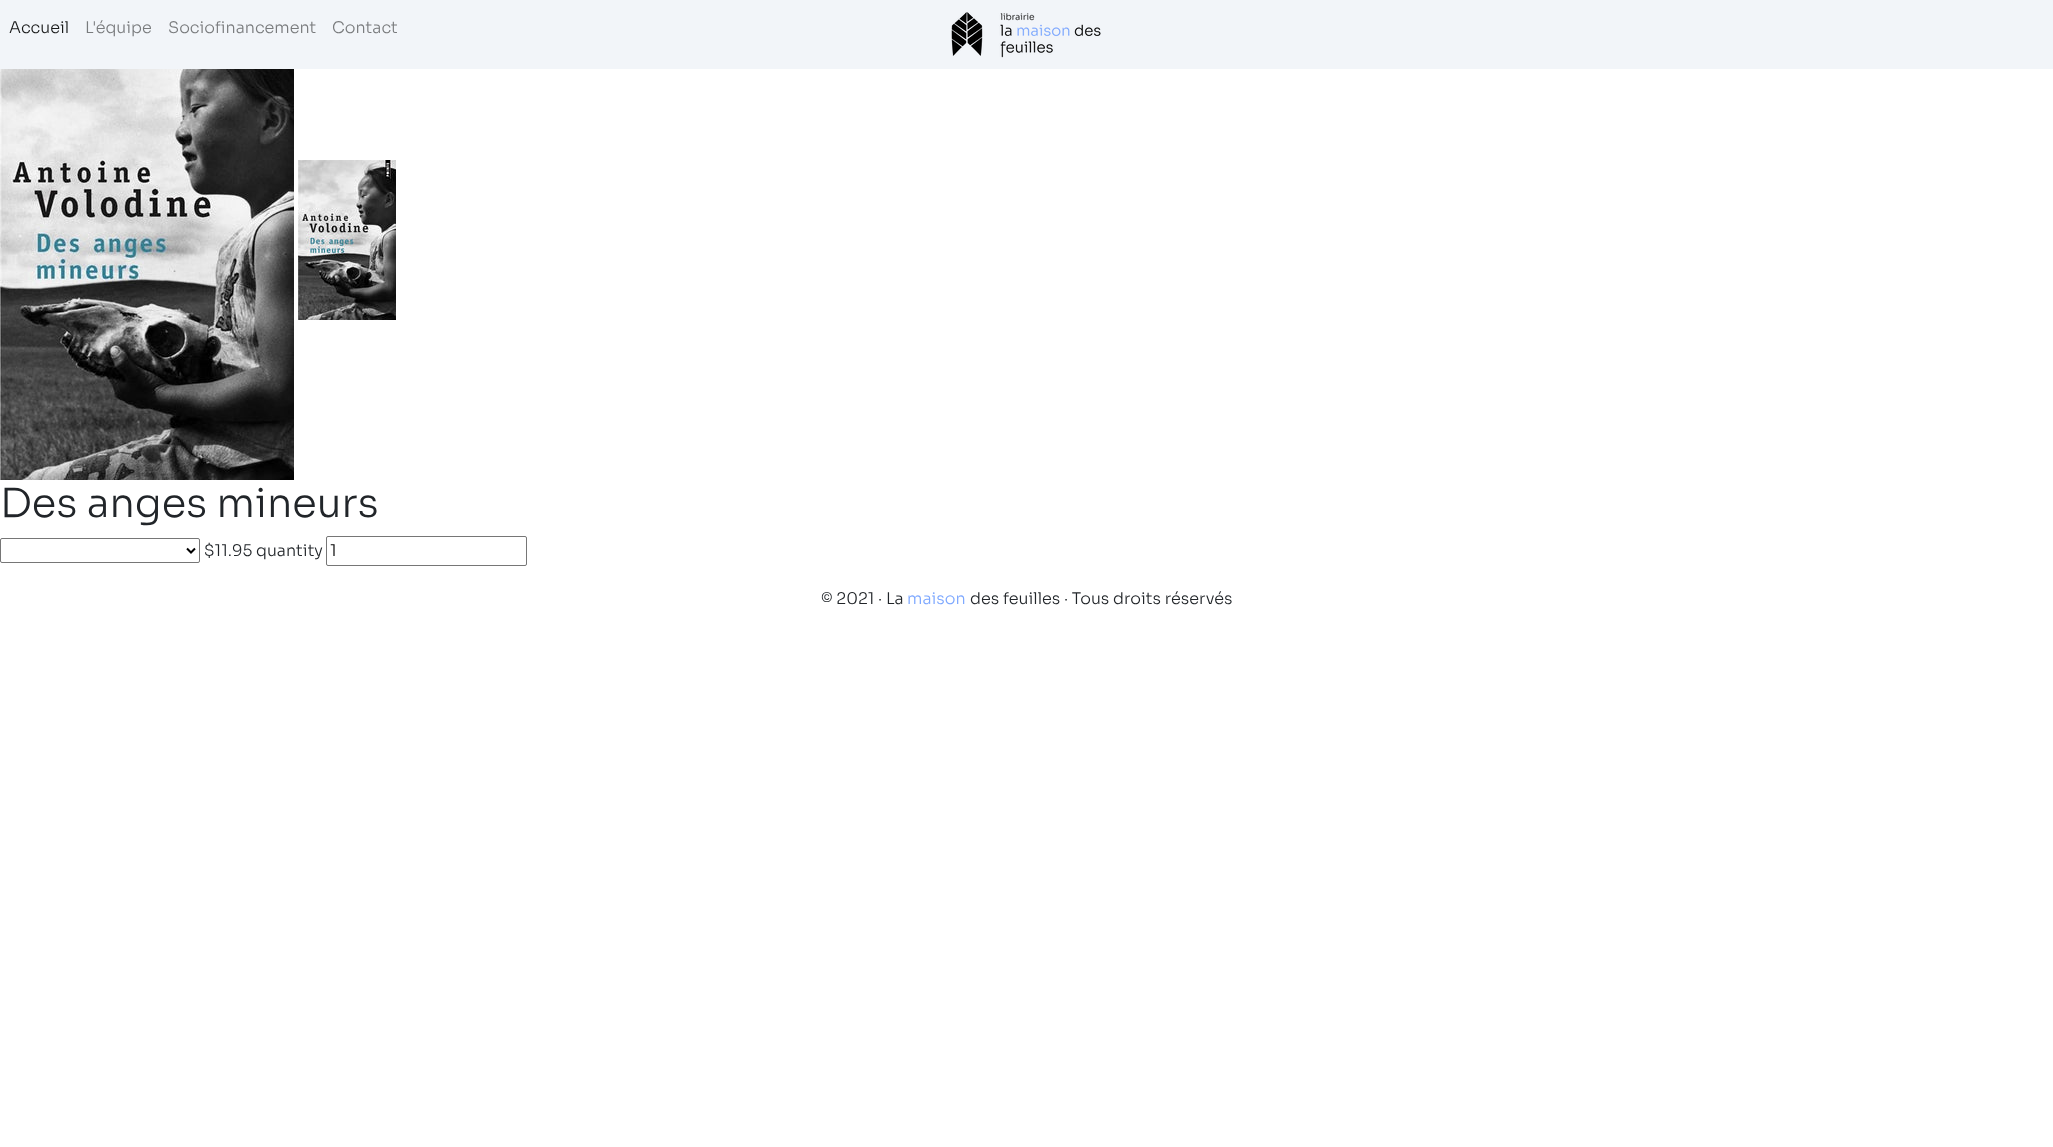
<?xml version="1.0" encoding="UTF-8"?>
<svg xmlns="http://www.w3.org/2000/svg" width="2053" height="1147">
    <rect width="100%" height="100%" fill="#FFFFFF"/>
    <rect x="0" y="0" width="2053" height="69" fill="#F2F5F9"/>
    <text x="9" y="33" font-family="Sora" font-size="16" font-weight="300" fill="#181919">Accueil</text>
    <text x="85" y="33" font-family="Sora" font-size="16" font-weight="300" fill="#797B7D">L'équipe</text>
    <text x="168" y="33" font-family="Sora" font-size="16" font-weight="300" fill="#797B7D">Sociofinancement</text>
    <text x="332" y="33" font-family="Sora" font-size="16" font-weight="300" fill="#797B7D">Contact</text>
    <image x="951" y="12" width="150" height="46" href="img_01.png"/>
    <image x="0" y="69" width="294" height="411" href="img_02.png"/>
    <image x="298" y="160" width="98" height="160" href="img_03.png"/>
    <text x="0" y="517" font-family="Sora" font-size="40" font-weight="300" fill="#212529">Des anges mineurs</text>
    <rect x="0.5" y="538.5" width="199" height="24" rx="1.5" fill="none" stroke="#767676"/>
    <path d="M 187 548.5 L 191 552.5 L 195 548.5" fill="none" stroke="#000000" stroke-width="2"/>
    <text x="204" y="556" font-family="Sora" font-size="16" font-weight="300" fill="#212529">$11.95 quantity</text>
    <rect x="326.5" y="536.5" width="200" height="29" rx="1.5" fill="none" stroke="#767676"/>
    <text x="330" y="556" font-family="Sora" font-size="16" font-weight="300" fill="#000000">1</text>
    <text x="821" y="604" font-family="Sora" font-size="16" font-weight="300" fill="#212529">© 2021 · La</text>
    <text x="907" y="604" font-family="Sora" font-size="16" font-weight="300" fill="#7CA7FF">maison</text>
    <text x="970" y="604" font-family="Sora" font-size="16" font-weight="300" fill="#212529">des feuilles · Tous droits réservés</text>
</svg>
